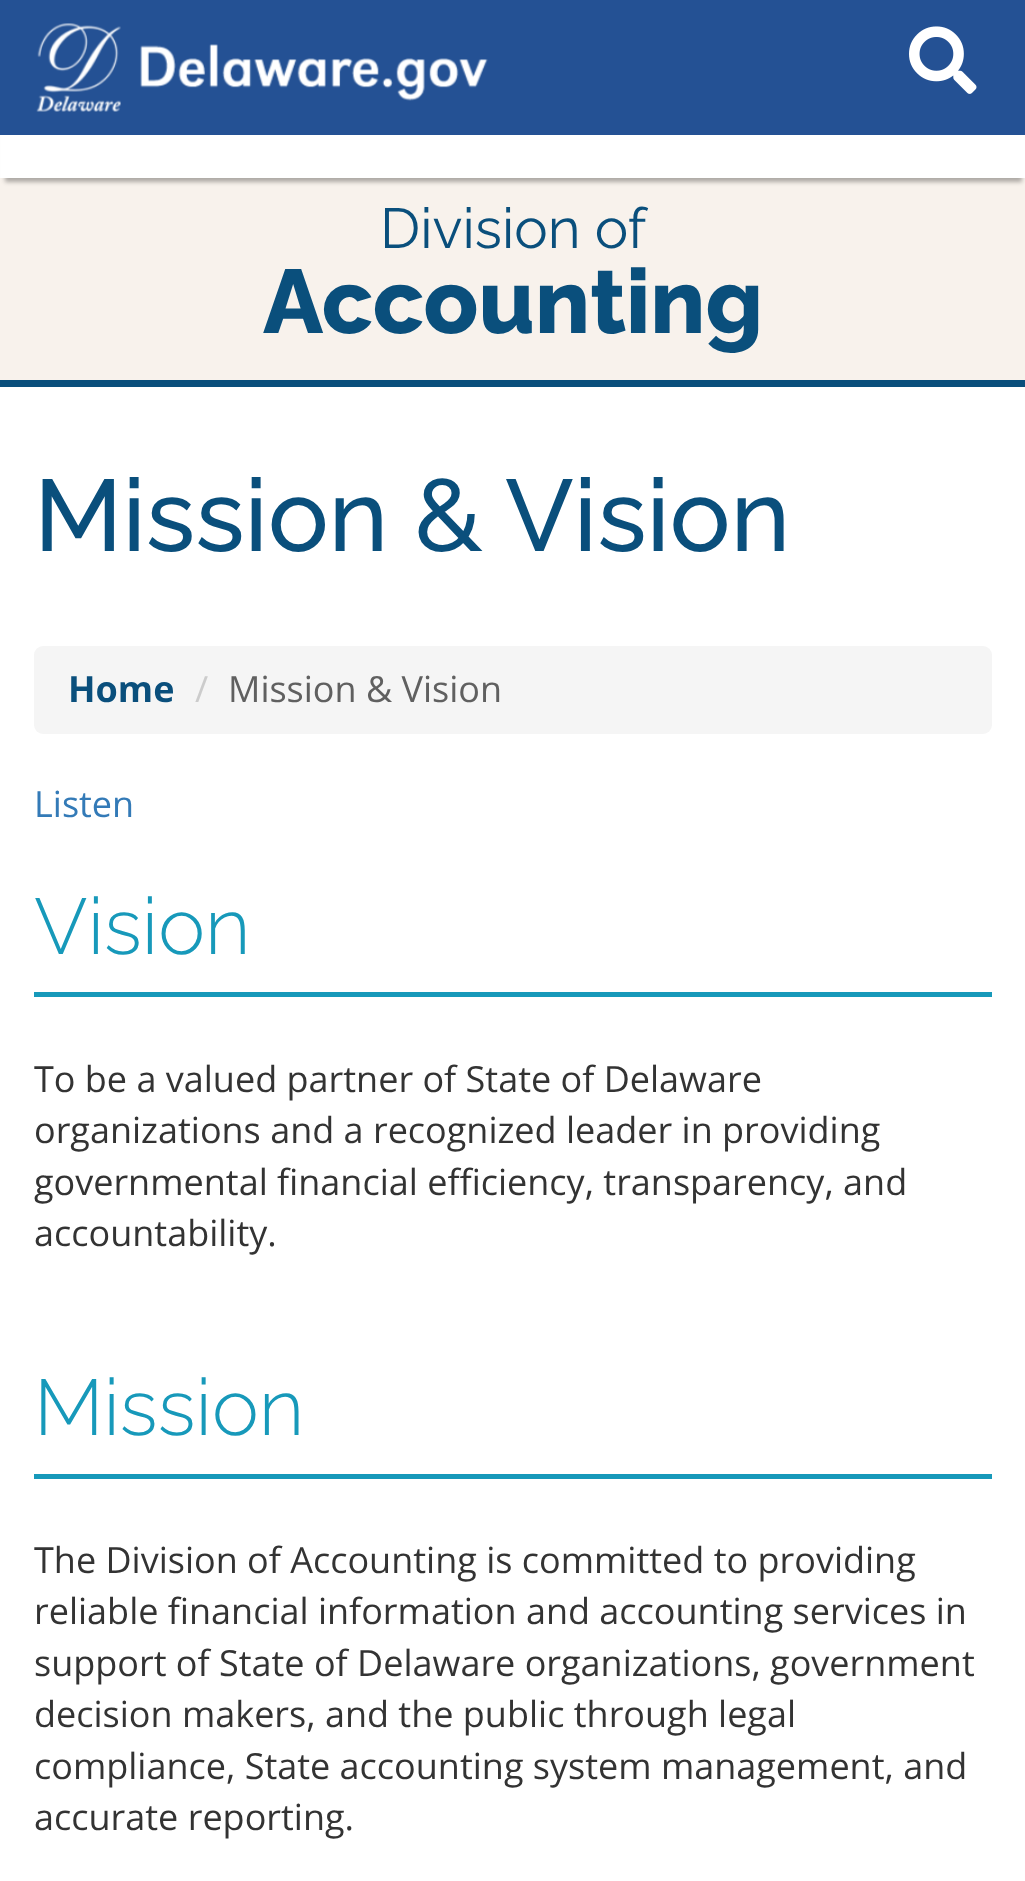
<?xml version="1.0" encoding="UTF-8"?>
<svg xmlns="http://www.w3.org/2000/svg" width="1025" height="1881">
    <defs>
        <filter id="blur1" x="-50%" y="-200%" width="200%" height="500%"><feGaussianBlur stdDeviation="2"/></filter>
    </defs>
    <rect width="100%" height="100%" fill="#FFFFFF"/>
    <rect x="0" y="178" width="1025" height="202" fill="#F8F2EC"/>
    <rect x="5" y="54" width="1017" height="128" fill="#000000" fill-opacity="0.3" filter="url(#blur1)"/>
    <rect x="0" y="0" width="1025" height="135" fill="#245194"/>
    <image x="36" y="23" width="85" height="89" href="img_01.png"/>
    <image x="140" y="44" width="348" height="57" href="img_02.png"/>
    <image x="909" y="26" width="68" height="68" href="img_03.png"/>
    <rect x="1" y="135" width="1024" height="43" fill="#FFFFFF"/>
    <rect x="0" y="380" width="1025" height="7" fill="#0A4F7C"/>
    <text x="380" y="248" font-family="Raleway" font-size="56.25" fill="#0A4F7C">Division of</text>
    <text x="263" y="333" font-family="Raleway" font-size="90" font-weight="800" fill="#0A4F7C">Accounting</text>
    <text x="34" y="551" font-family="Raleway" font-size="101.25" font-weight="500" fill="#0A4F7C">Mission &amp; Vision</text>
    <rect x="34" y="646" width="958" height="88" rx="9" fill="#F5F5F5"/>
    <text x="68" y="702" font-family="Open Sans" font-size="36" font-weight="700" fill="#0A4F7C">Home</text>
    <text x="195" y="702" font-family="Open Sans" font-size="36" fill="#CCCCCC">/</text>
    <text x="228" y="702" font-family="Open Sans" font-size="36" fill="#606060">Mission &amp; Vision</text>
    <text x="34" y="817" font-family="Open Sans" font-size="36" fill="#337AB7">Listen</text>
    <text x="34" y="954" font-family="Raleway" font-size="79" font-weight="300" fill="#1799BA">Vision</text>
    <rect x="34" y="992" width="958" height="5" fill="#1799BA"/>
    <text font-family="Open Sans" font-size="36" fill="#333333">
        <tspan x="34" y="1092">To be a valued partner of State of Delaware</tspan>
        <tspan x="34" y="1143">organizations and a recognized leader in providing</tspan>
        <tspan x="34" y="1195">governmental financial efficiency, transparency, and</tspan>
        <tspan x="34" y="1246">accountability.</tspan>
    </text>
    <text x="34" y="1435" font-family="Raleway" font-size="79" font-weight="300" fill="#1799BA">Mission</text>
    <rect x="34" y="1474" width="958" height="5" fill="#1799BA"/>
    <text font-family="Open Sans" font-size="36" fill="#333333">
        <tspan x="34" y="1573">The Division of Accounting is committed to providing</tspan>
        <tspan x="34" y="1624">reliable financial information and accounting services in</tspan>
        <tspan x="34" y="1676">support of State of Delaware organizations, government</tspan>
        <tspan x="34" y="1727">decision makers, and the public through legal</tspan>
        <tspan x="34" y="1779">compliance, State accounting system management, and</tspan>
        <tspan x="34" y="1830">accurate reporting.</tspan>
    </text>
</svg>
